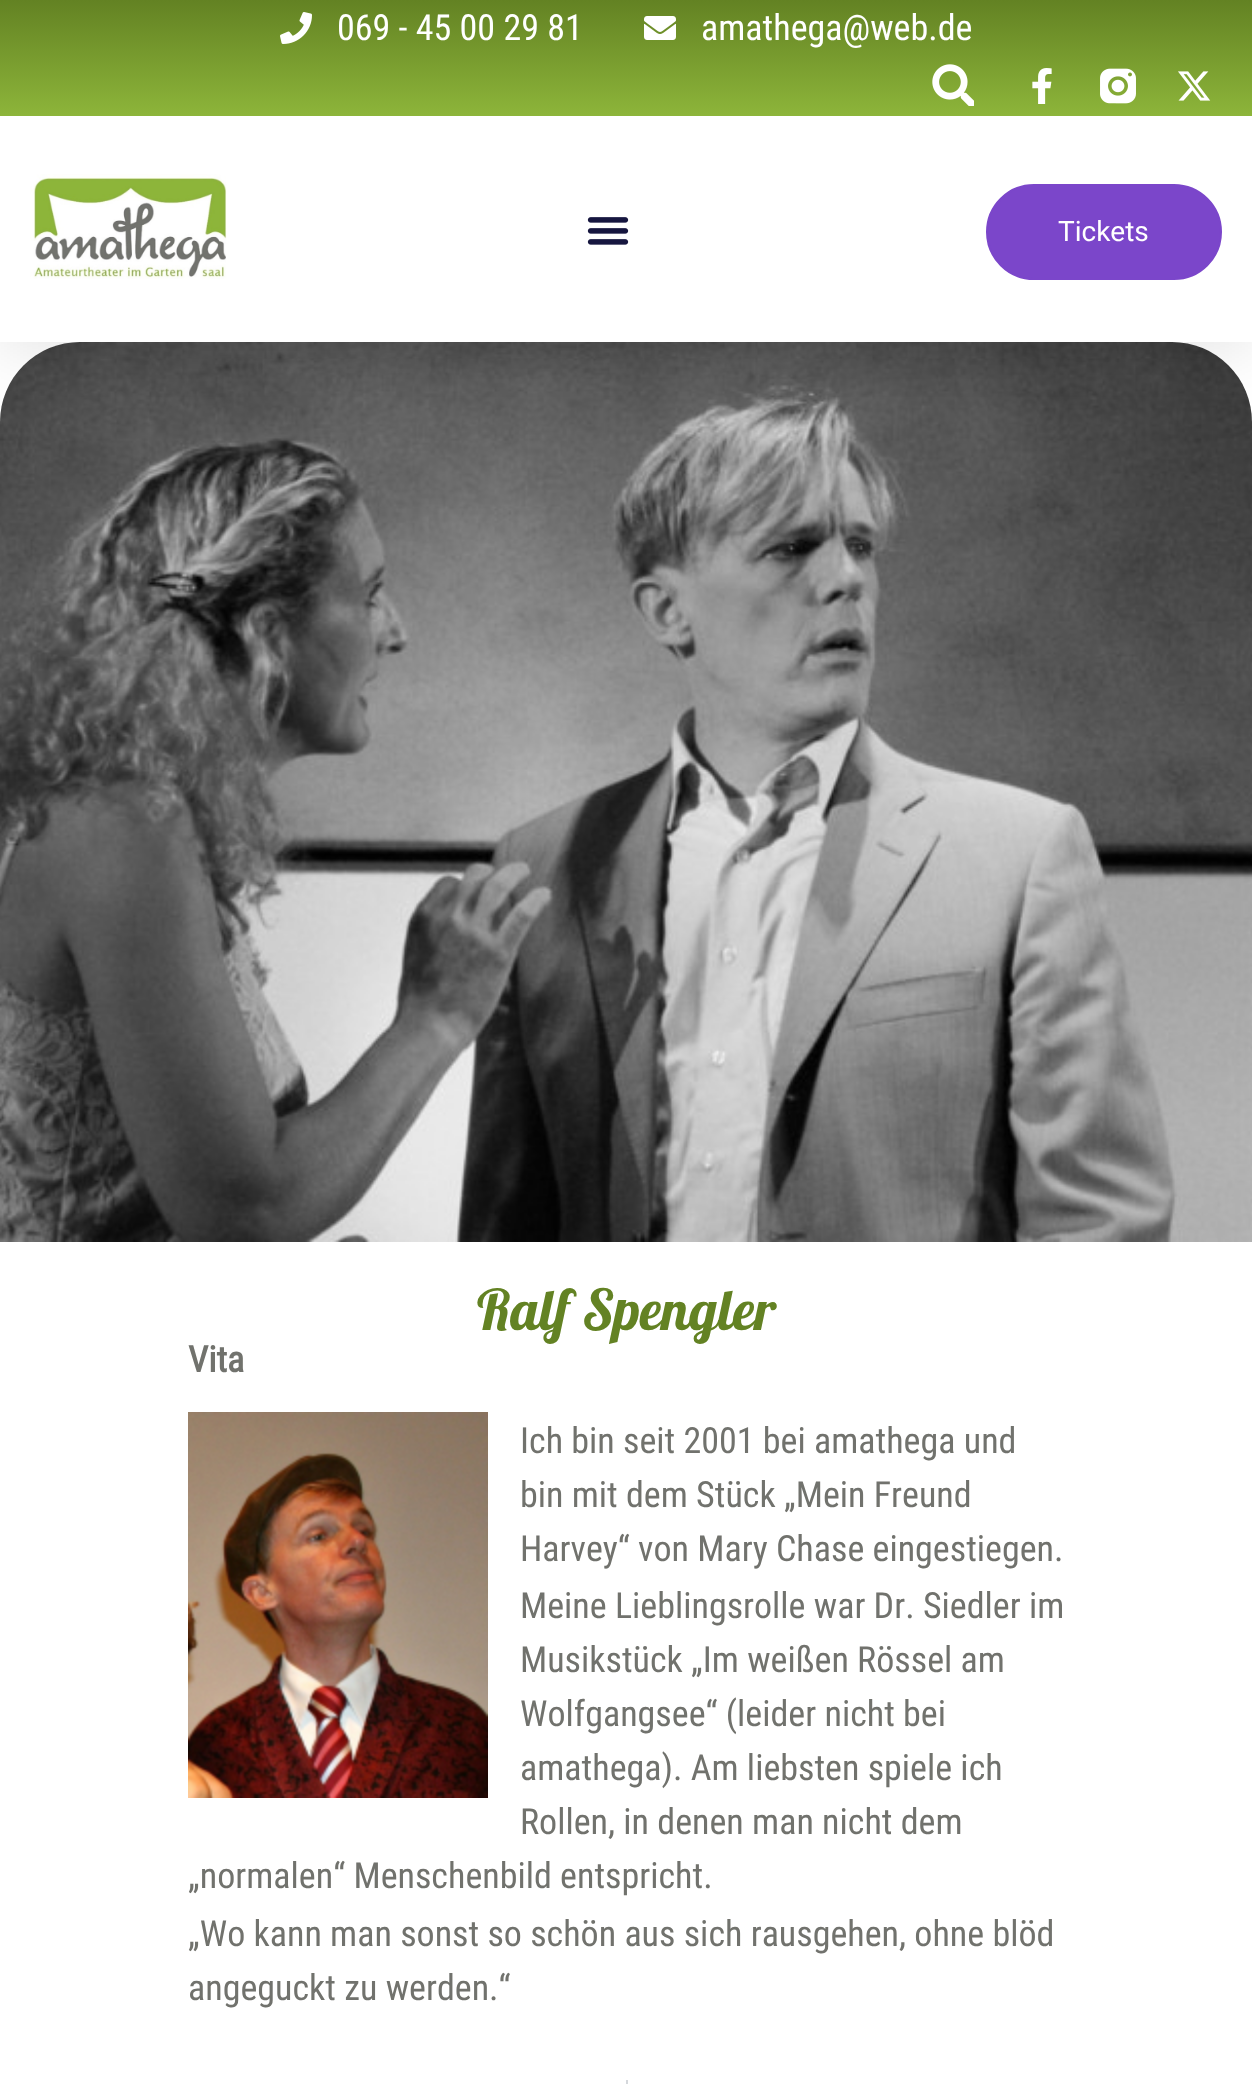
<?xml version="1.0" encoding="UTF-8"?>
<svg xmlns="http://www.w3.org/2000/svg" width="1252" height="2084">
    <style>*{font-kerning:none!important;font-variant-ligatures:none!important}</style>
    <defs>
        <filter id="blur1" x="-50%" y="-200%" width="200%" height="500%"><feGaussianBlur stdDeviation="30"/></filter>
        <linearGradient id="g1" gradientUnits="userSpaceOnUse" x1="626" y1="0" x2="626" y2="116"><stop offset="0" stop-color="#638223"/><stop offset="1" stop-color="#8DB53A"/></linearGradient>
    </defs>
    <rect width="100%" height="100%" fill="#FFFFFF"/>
    <image x="0" y="342" width="1252" height="900" href="img_09.png"/>
    <rect x="0" y="10" width="1252" height="342" fill="#000000" fill-opacity="0.1" filter="url(#blur1)"/>
    <rect x="0" y="0" width="1252" height="116" fill="url(#g1)"/>
    <image x="280" y="12" width="32" height="32" href="img_01.png"/>
    <text x="337" y="40" font-family="Roboto Condensed" font-size="36" fill="#FFFFFF">069 - 45 00 29 81</text>
    <image x="644" y="16" width="32" height="24" href="img_02.png"/>
    <text x="701" y="40" font-family="Roboto Condensed" font-size="36" fill="#FFFFFF">amathega@web.de</text>
    <image x="932" y="64" width="42" height="42" href="img_03.png"/>
    <image x="1032" y="68" width="20" height="36" href="img_04.png"/>
    <image x="1100" y="68" width="36" height="36" href="img_05.png"/>
    <image x="1178" y="71" width="33" height="30" href="img_06.png"/>
    <rect x="0" y="116" width="1252" height="226" fill="#FFFFFF"/>
    <image x="30" y="174" width="197" height="105" href="img_07.png"/>
    <image x="587" y="217" width="42" height="28" href="img_08.png"/>
    <rect x="987" y="185" width="234" height="94" rx="47" fill="#7B46CA" stroke="#7B46CA" stroke-width="2"/>
    <text x="1058" y="241" font-family="Roboto" font-size="28" fill="#FFFFFF">Tickets</text>
    <text x="477" y="1330" font-family="Lobster" font-size="56" fill="#638223">Ralf Spengler</text>
    <text x="188" y="1372" font-family="Roboto Condensed" font-size="36" font-weight="700" fill="#71726D">Vita</text>
    <image x="188" y="1412" width="300" height="386" href="img_10.png"/>
    <text font-family="Roboto Condensed" font-size="36" fill="#71726D">
        <tspan x="520" y="1453">Ich bin seit 2001 bei amathega und</tspan>
        <tspan x="520" y="1507">bin mit dem Stück „Mein Freund</tspan>
        <tspan x="520" y="1561">Harvey“ von Mary Chase eingestiegen.</tspan>
        <tspan x="520" y="1618">Meine Lieblingsrolle war Dr. Siedler im</tspan>
        <tspan x="520" y="1672">Musikstück „Im weißen Rössel am</tspan>
        <tspan x="520" y="1726">Wolfgangsee“ (leider nicht bei</tspan>
        <tspan x="520" y="1780">amathega). Am liebsten spiele ich</tspan>
        <tspan x="520" y="1834">Rollen, in denen man nicht dem</tspan>
    </text>
    <text font-family="Roboto Condensed" font-size="36" fill="#71726D">
        <tspan x="188" y="1888">„normalen“ Menschenbild entspricht.</tspan>
        <tspan x="188" y="1946">„Wo kann man sonst so schön aus sich rausgehen, ohne blöd</tspan>
        <tspan x="188" y="2000">angeguckt zu werden.“</tspan>
    </text>
    <rect x="626" y="2080" width="2" height="4" fill="#D5D8DC"/>
</svg>
